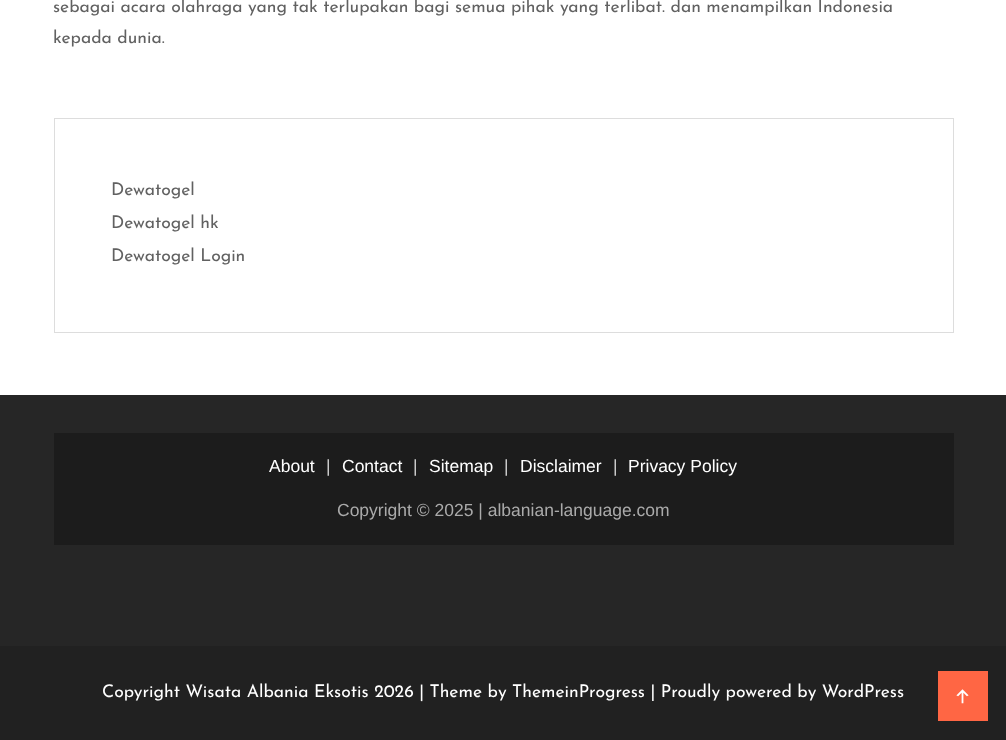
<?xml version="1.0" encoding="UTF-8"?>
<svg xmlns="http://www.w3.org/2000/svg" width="1006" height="740">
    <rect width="100%" height="100%" fill="#FFFFFF"/>
    <text font-family="Josefin Sans" font-size="17.5" fill="#616161">
        <tspan x="53" y="12">sebagai acara olahraga yang tak terlupakan bagi semua pihak yang terlibat. dan menampilkan Indonesia</tspan>
        <tspan x="53" y="43">kepada dunia.</tspan>
    </text>
    <rect x="54.5" y="118.5" width="899" height="214" fill="none" stroke="#DDDDDD"/>
    <text font-family="Josefin Sans" font-size="17.5" fill="#616161">
        <tspan x="111" y="195">Dewatogel</tspan>
        <tspan x="111" y="228">Dewatogel hk</tspan>
        <tspan x="111" y="261">Dewatogel Login</tspan>
    </text>
    <rect x="0" y="646" width="1006" height="94" fill="#212121"/>
    <rect x="0" y="395" width="1006" height="251" fill="#262626"/>
    <rect x="54" y="433" width="900" height="112" fill="#1C1C1C"/>
    <text x="269" y="472" font-family="Liberation Sans" font-size="17.5" fill="#FFFFFF">About</text>
    <text x="326" y="472" font-family="Liberation Sans" font-size="17.5" fill="#CCCCCC">|</text>
    <text x="342" y="472" font-family="Liberation Sans" font-size="17.5" fill="#FFFFFF">Contact</text>
    <text x="413" y="472" font-family="Liberation Sans" font-size="17.5" fill="#CCCCCC">|</text>
    <text x="429" y="472" font-family="Liberation Sans" font-size="17.5" fill="#FFFFFF">Sitemap</text>
    <text x="504" y="472" font-family="Liberation Sans" font-size="17.5" fill="#CCCCCC">|</text>
    <text x="520" y="472" font-family="Liberation Sans" font-size="17.5" fill="#FFFFFF">Disclaimer</text>
    <text x="613" y="472" font-family="Liberation Sans" font-size="17.5" fill="#CCCCCC">|</text>
    <text x="628" y="472" font-family="Liberation Sans" font-size="17.5" fill="#FFFFFF">Privacy Policy</text>
    <text x="337" y="516" font-family="Liberation Sans" font-size="17.5" fill="#AAAAAA">Copyright © 2025 | albanian-language.com</text>
    <text x="102" y="697" font-family="Josefin Sans" font-size="17.5" fill="#FFFFFF">Copyright Wisata Albania Eksotis 2026 | Theme by ThemeinProgress | Proudly powered by WordPress</text>
    <rect x="938" y="671" width="50" height="50" fill="#FF6644"/>
    <image x="956" y="689" width="13" height="15" href="img_01.png"/>
</svg>
